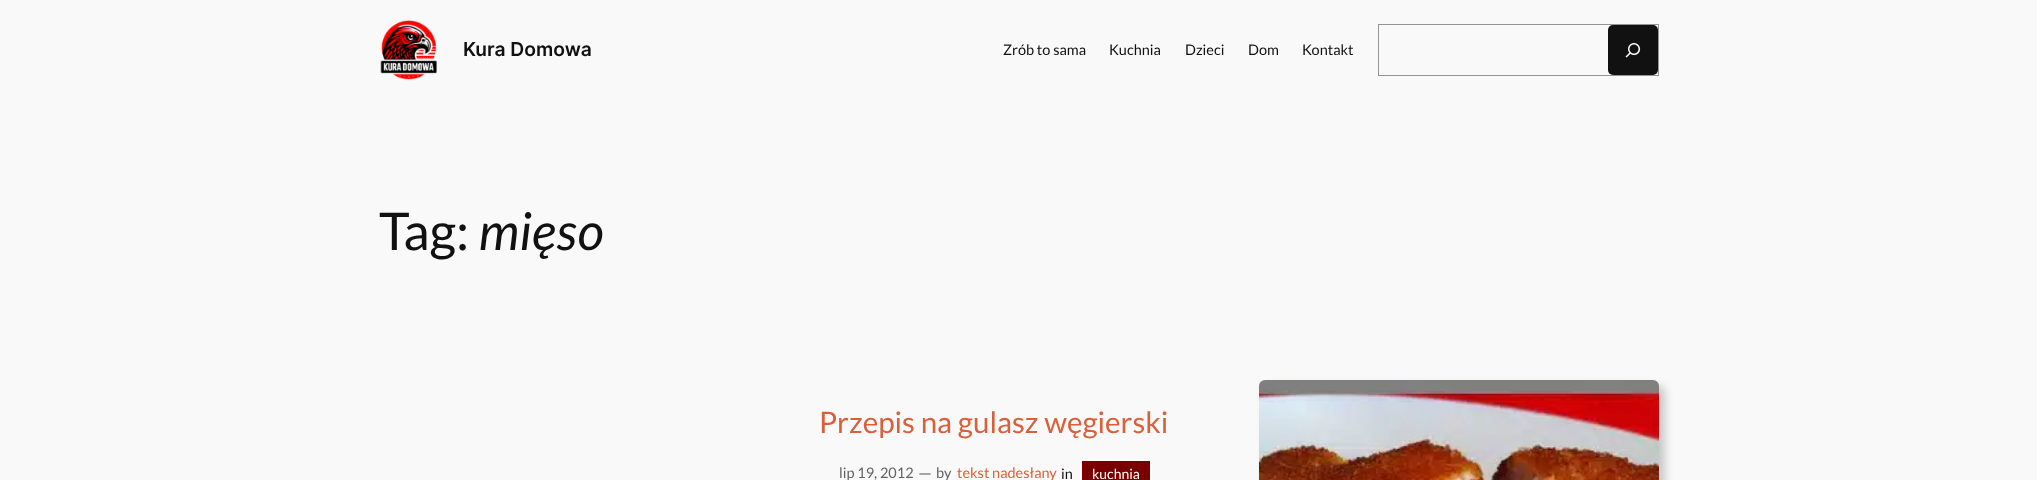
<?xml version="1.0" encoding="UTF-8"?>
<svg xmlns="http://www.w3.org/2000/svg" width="2037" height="480">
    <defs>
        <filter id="blur1" x="-50%" y="-200%" width="200%" height="500%"><feGaussianBlur stdDeviation="4.5"/></filter>
    </defs>
    <rect width="100%" height="100%" fill="#F9F9F9"/>
    <image x="380" y="20" width="57" height="60" href="img_01.png"/>
    <text x="463" y="56" font-family="Inter" font-size="19.25" font-weight="600" fill="#111111">Kura Domowa</text>
    <text x="1003" y="55" font-family="Lato" font-size="14.5" fill="#111111">Zrób to sama</text>
    <text x="1109" y="55" font-family="Lato" font-size="14.5" fill="#111111">Kuchnia</text>
    <text x="1185" y="55" font-family="Lato" font-size="14.5" fill="#111111">Dzieci</text>
    <text x="1248" y="55" font-family="Lato" font-size="14.5" fill="#111111">Dom</text>
    <text x="1302" y="55" font-family="Lato" font-size="14.5" fill="#111111">Kontakt</text>
    <rect x="1378.5" y="24.5" width="280" height="51" fill="none" stroke="#949494"/>
    <rect x="1608" y="25" width="50" height="50" rx="5" fill="#111111"/>
    <image x="1625" y="43" width="16" height="15" href="img_02.png"/>
    <text x="379" y="250" font-family="Lato" font-size="52" fill="#111111">Tag:</text>
    <text x="479" y="250" font-family="Lato" font-size="52" font-style="italic" fill="#111111">mięso</text>
    <text x="819" y="433" font-family="Lato" font-size="29.6" fill="#D8613C">Przepis na gulasz węgierski</text>
    <text x="839" y="478" font-family="Lato" font-size="14.5" fill="#636363">lip 19, 2012</text>
    <text x="918" y="479" font-family="Lato" font-size="17" fill="#636363">—</text>
    <text x="936" y="478" font-family="Lato" font-size="14.5" fill="#636363">by</text>
    <text x="957" y="478" font-family="Lato" font-size="14.5" fill="#D8613C">tekst nadesłany</text>
    <text x="1061" y="479" font-family="Lato" font-size="14.5" fill="#111111">in</text>
    <rect x="1081" y="460" width="70" height="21" fill="#7A0000" stroke="#FFFFFF" stroke-width="2"/>
    <text x="1092" y="479" font-family="Lato" font-size="14" fill="#FFFFFF">kuchnia</text>
    <rect x="1265" y="386" width="400" height="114" rx="6" fill="#000000" fill-opacity="0.2" filter="url(#blur1)"/>
    <image x="1259" y="380" width="400" height="100" href="img_03.png"/>
</svg>
